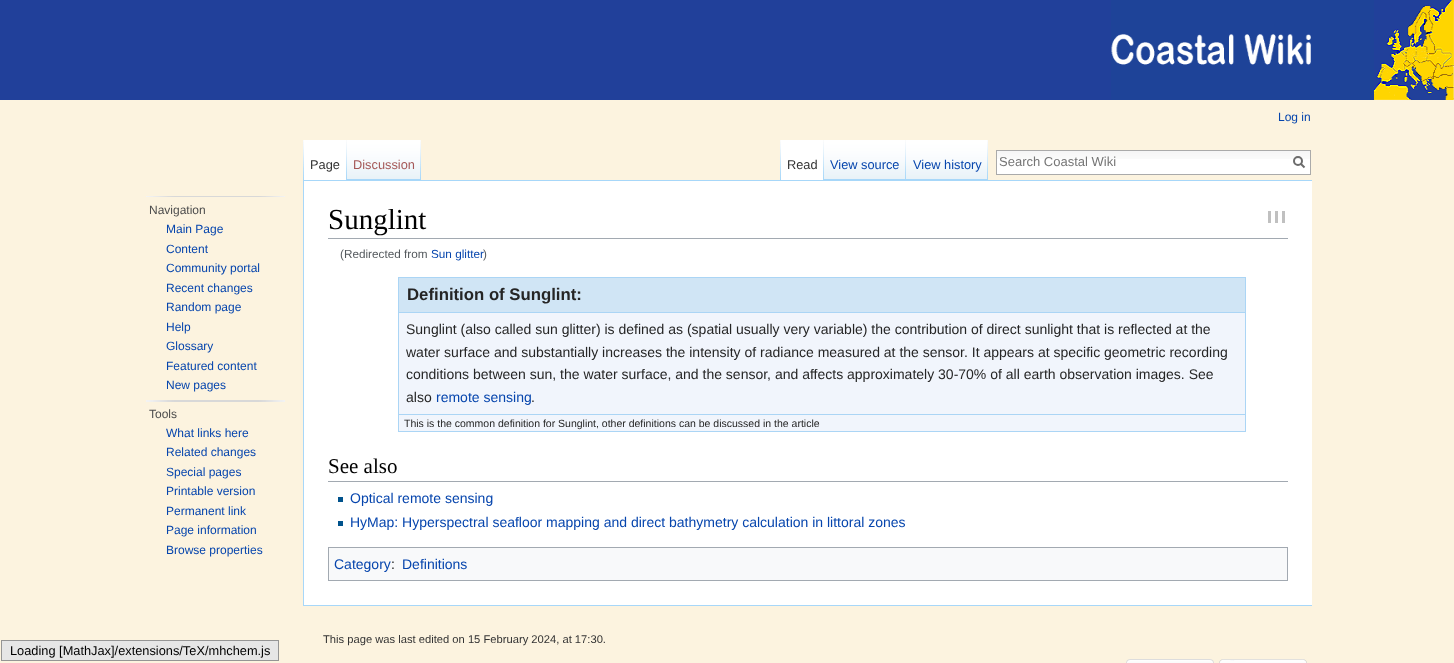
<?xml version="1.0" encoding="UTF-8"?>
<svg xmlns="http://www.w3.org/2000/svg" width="1454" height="663">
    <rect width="100%" height="100%" fill="#FCF3DF"/>
    <rect x="0" y="0" width="1111" height="100" fill="#21409A"/>
    <image x="1111" y="0" width="343" height="100" href="img_01.png"/>
    <text x="1278" y="121" font-family="Liberation Sans" font-size="12" fill="#0645AD">Log in</text>
    <image x="303" y="140" width="1" height="40" href="img_02.png"/>
    <rect x="304" y="140" width="42" height="40" fill="#FFFFFF"/>
    <image x="346" y="140" width="1" height="40" href="img_03.png"/>
    <text x="310" y="169" font-family="Liberation Sans" font-size="12.8" fill="#333333">Page</text>
    <image x="347" y="140" width="74" height="40" href="img_04.png"/>
    <image x="420" y="140" width="1" height="39" href="img_05.png"/>
    <text x="353" y="169" font-family="Liberation Sans" font-size="12.8" fill="#A55858">Discussion</text>
    <image x="780" y="140" width="1" height="40" href="img_02.png"/>
    <rect x="781" y="140" width="42" height="40" fill="#FFFFFF"/>
    <image x="823" y="140" width="1" height="40" href="img_03.png"/>
    <text x="787" y="169" font-family="Liberation Sans" font-size="12.8" fill="#333333">Read</text>
    <image x="824" y="140" width="82" height="40" href="img_06.png"/>
    <image x="905" y="140" width="1" height="39" href="img_05.png"/>
    <text x="830" y="169" font-family="Liberation Sans" font-size="12.8" fill="#0645AD">View source</text>
    <image x="906" y="140" width="82" height="40" href="img_06.png"/>
    <image x="987" y="140" width="1" height="39" href="img_05.png"/>
    <text x="913" y="169" font-family="Liberation Sans" font-size="12.8" fill="#0645AD">View history</text>
    <rect x="997" y="159" width="313" height="15" fill="#FFFFFF"/>
    <image x="997" y="151" width="313" height="8" href="img_07.png"/>
    <rect x="996.5" y="150.5" width="314" height="24" fill="none" stroke="#AAAAAA"/>
    <text x="999" y="166" font-family="Liberation Sans" font-size="13" fill="#757575">Search Coastal Wiki</text>
    <path d="M 1304.5 167.5 L 1300.5 163.5" fill="none" stroke="#6C6C6C" stroke-width="2"/>
    <circle cx="1298" cy="161" r="4" fill="none" stroke="#6C6C6C" stroke-width="2"/>
    <image x="146" y="196" width="139" height="1" href="img_08.png"/>
    <text x="149" y="214" font-family="Liberation Sans" font-size="12" fill="#4D4D4D">Navigation</text>
    <text font-family="Liberation Sans" font-size="12" fill="#0645AD">
        <tspan x="166" y="233">Main Page</tspan>
        <tspan x="166" y="253">Content</tspan>
        <tspan x="166" y="272">Community portal</tspan>
        <tspan x="166" y="292">Recent changes</tspan>
        <tspan x="166" y="311">Random page</tspan>
        <tspan x="166" y="331">Help</tspan>
        <tspan x="166" y="350">Glossary</tspan>
        <tspan x="166" y="370">Featured content</tspan>
        <tspan x="166" y="389">New pages</tspan>
    </text>
    <image x="146" y="400" width="139" height="2" href="img_09.png"/>
    <text x="149" y="418" font-family="Liberation Sans" font-size="12" fill="#4D4D4D">Tools</text>
    <text font-family="Liberation Sans" font-size="12" fill="#0645AD">
        <tspan x="166" y="437">What links here</tspan>
        <tspan x="166" y="456">Related changes</tspan>
        <tspan x="166" y="476">Special pages</tspan>
        <tspan x="166" y="495">Printable version</tspan>
        <tspan x="166" y="515">Permanent link</tspan>
        <tspan x="166" y="534">Page information</tspan>
        <tspan x="166" y="554">Browse properties</tspan>
    </text>
    <rect x="304" y="181" width="1008" height="424" fill="#FFFFFF"/>
    <rect x="303" y="180" width="1009" height="1" fill="#A7D7F9"/>
    <rect x="303" y="605" width="1009" height="1" fill="#A7D7F9"/>
    <rect x="303" y="180" width="1" height="426" fill="#A7D7F9"/>
    <rect x="328" y="238" width="960" height="1" fill="#A2A9B1"/>
    <text x="328" y="229" font-family="Liberation Serif" font-size="29" fill="#000000">Sunglint</text>
    <rect x="1275" y="211" width="3" height="12" fill="#C0C0C0"/>
    <rect x="1268" y="211" width="3" height="12" fill="#C0C0C0"/>
    <rect x="1282" y="211" width="3" height="12" fill="#C0C0C0"/>
    <text x="340" y="258" font-family="Liberation Sans" font-size="11.75" fill="#54595D">(Redirected from</text>
    <text x="431" y="258" font-family="Liberation Sans" font-size="11.75" fill="#0645AD">Sun glitter</text>
    <text x="483" y="258" font-family="Liberation Sans" font-size="11.75" fill="#54595D">)</text>
    <rect x="399" y="313" width="846" height="118" fill="#F1F5FC"/>
    <rect x="398.5" y="277.5" width="847" height="154" fill="none" stroke="#ABD5F5"/>
    <rect x="399" y="278" width="846" height="34" fill="#D0E5F5"/>
    <rect x="399" y="312" width="846" height="1" fill="#ABD5F5"/>
    <text x="407" y="300" font-family="Liberation Sans" font-size="16.75" font-weight="700" fill="#252525">Definition of Sunglint:</text>
    <text font-family="Liberation Sans" font-size="14" fill="#252525">
        <tspan x="406" y="334">Sunglint (also called sun glitter) is defined as (spatial usually very variable) the contribution of direct sunlight that is reflected at the</tspan>
        <tspan x="406" y="357">water surface and substantially increases the intensity of radiance measured at the sensor. It appears at specific geometric recording</tspan>
        <tspan x="406" y="379">conditions between sun, the water surface, and the sensor, and affects approximately 30-70% of all earth observation images. See</tspan>
        <tspan x="406" y="402">also</tspan>
    </text>
    <text x="436" y="402" font-family="Liberation Sans" font-size="14" fill="#0645AD">remote sensing</text>
    <text x="531" y="402" font-family="Liberation Sans" font-size="14" fill="#252525">.</text>
    <rect x="399" y="414" width="846" height="1" fill="#ABD5F5"/>
    <text x="404" y="427" font-family="Liberation Sans" font-size="10.5" fill="#252525">This is the common definition for Sunglint, other definitions can be discussed in the article</text>
    <rect x="328" y="481" width="960" height="1" fill="#A2A9B1"/>
    <text x="328" y="473" font-family="Liberation Serif" font-size="21" fill="#000000">See also</text>
    <rect x="338" y="497" width="5" height="5" fill="#00528C"/>
    <text x="350" y="503" font-family="Liberation Sans" font-size="14" fill="#0645AD">Optical remote sensing</text>
    <rect x="338" y="521" width="5" height="5" fill="#00528C"/>
    <text x="350" y="527" font-family="Liberation Sans" font-size="14" fill="#0645AD">HyMap: Hyperspectral seafloor mapping and direct bathymetry calculation in littoral zones</text>
    <rect x="328.5" y="547.5" width="959" height="33" fill="#F8F9FA" stroke="#A2A9B1"/>
    <text x="334" y="569" font-family="Liberation Sans" font-size="14" fill="#0645AD">Category</text>
    <text x="391" y="569" font-family="Liberation Sans" font-size="14" fill="#252525">:</text>
    <text x="402" y="569" font-family="Liberation Sans" font-size="14" fill="#0645AD">Definitions</text>
    <text x="323" y="643" font-family="Liberation Sans" font-size="11.2" fill="#333333">This page was last edited on 15 February 2024, at 17:30.</text>
    <image x="1126" y="659" width="88" height="4" href="img_10.png"/>
    <image x="1219" y="659" width="88" height="4" href="img_11.png"/>
    <rect x="1.5" y="640.5" width="277" height="20" fill="#E6E6E6" stroke="#959595"/>
    <text x="10" y="655" font-family="Liberation Sans" font-size="12.8" fill="#000000">Loading [MathJax]/extensions/TeX/mhchem.js</text>
</svg>
